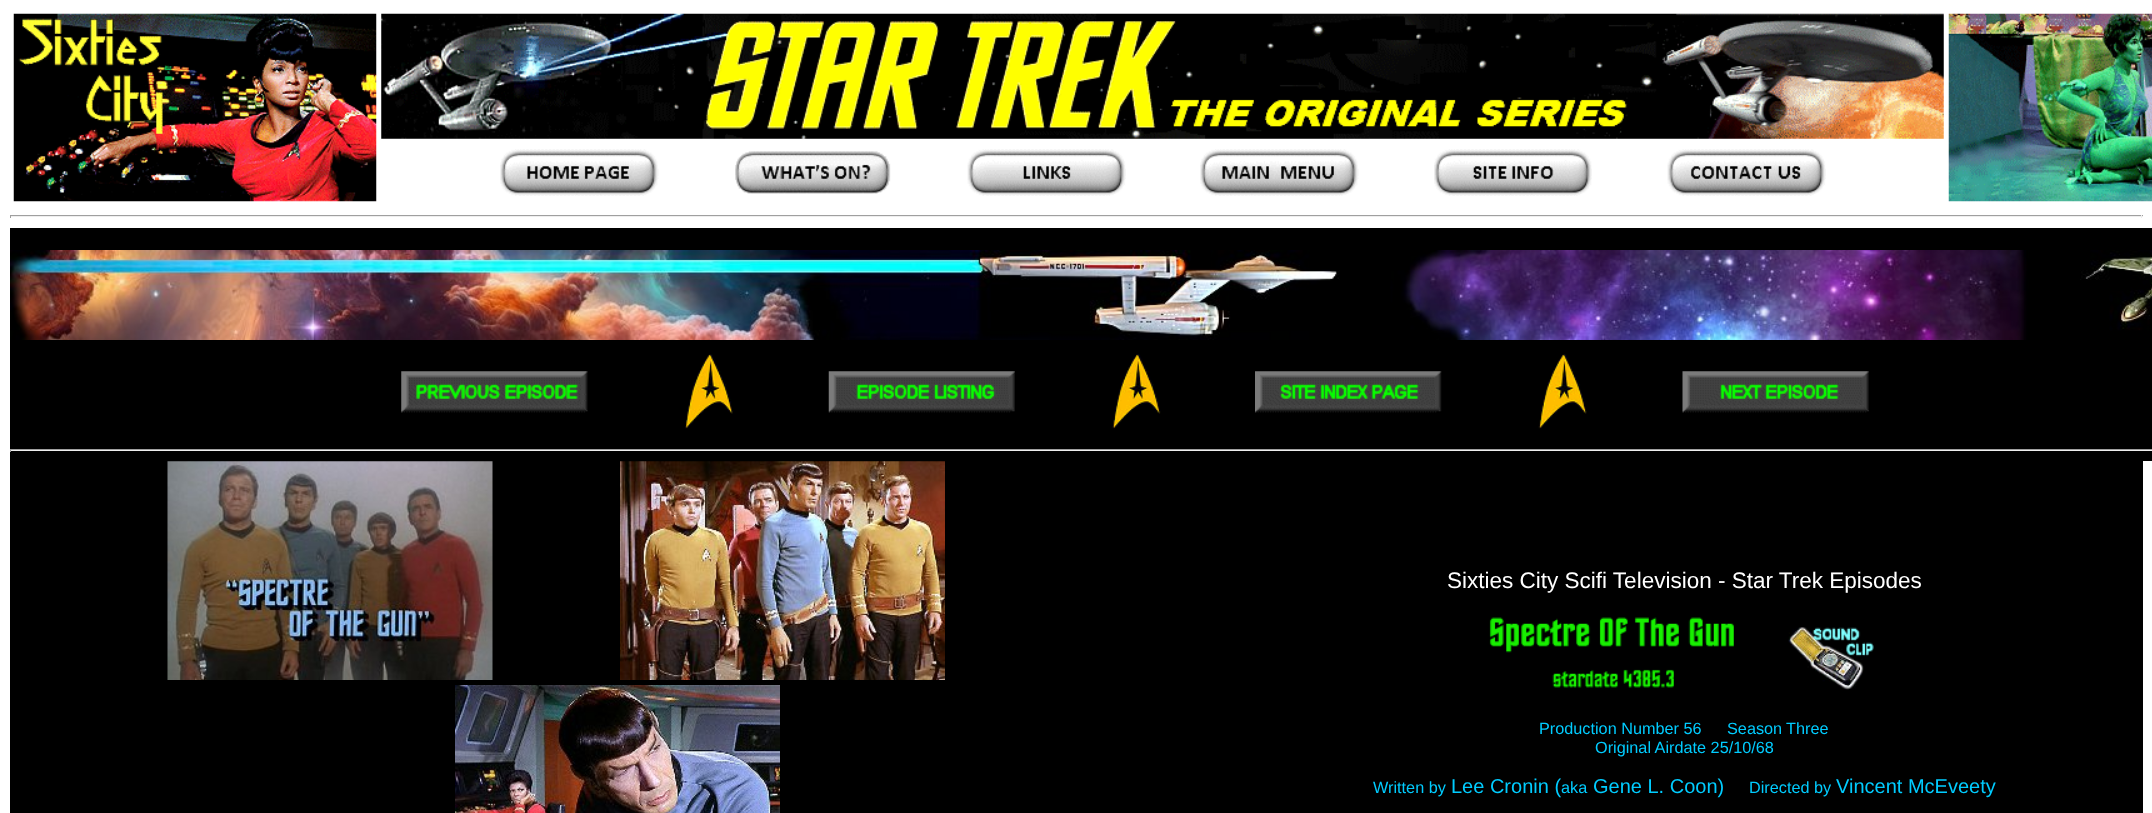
<?xml version="1.0" encoding="UTF-8"?>
<svg xmlns="http://www.w3.org/2000/svg" width="2152" height="813">
    <rect width="100%" height="100%" fill="#FFFFFF"/>
    <image x="13" y="13" width="364" height="189" href="img_01.png"/>
    <image x="381" y="13" width="1563" height="126" href="img_02.png"/>
    <image x="1948" y="13" width="204" height="189" href="img_03.png"/>
    <image x="500" y="149" width="159" height="47" href="img_04.png"/>
    <image x="735" y="151" width="156" height="43" href="img_05.png"/>
    <image x="967" y="149" width="159" height="47" href="img_06.png"/>
    <image x="1200" y="149" width="159" height="47" href="img_07.png"/>
    <image x="1434" y="149" width="158" height="47" href="img_08.png"/>
    <image x="1667" y="149" width="159" height="47" href="img_09.png"/>
    <rect x="10" y="215" width="2133" height="1" fill="#9F9F9F"/>
    <rect x="2141" y="215" width="1" height="3" fill="#EEEEEE"/>
    <rect x="10" y="216" width="2133" height="1" fill="#EEEEEE"/>
    <rect x="10" y="215" width="1" height="3" fill="#9F9F9F"/>
    <rect x="10" y="228" width="2142" height="233" fill="#000000"/>
    <image x="10" y="250" width="2142" height="90" href="img_10.png"/>
    <image x="401" y="371" width="187" height="42" href="img_11.png"/>
    <image x="685" y="354" width="49" height="75" href="img_12.png"/>
    <image x="828" y="371" width="187" height="42" href="img_13.png"/>
    <image x="1112" y="354" width="49" height="75" href="img_14.png"/>
    <image x="1255" y="371" width="187" height="42" href="img_15.png"/>
    <image x="1538" y="354" width="49" height="75" href="img_16.png"/>
    <image x="1682" y="371" width="187" height="42" href="img_17.png"/>
    <rect x="10" y="449" width="2142" height="1" fill="#9F9F9F"/>
    <rect x="10" y="450" width="2142" height="1" fill="#EEEEEE"/>
    <rect x="10" y="449" width="1" height="3" fill="#9F9F9F"/>
    <rect x="10" y="461" width="2133" height="352" fill="#000000"/>
    <image x="167" y="461" width="326" height="219" href="img_18.png"/>
    <image x="620" y="461" width="325" height="219" href="img_19.png"/>
    <image x="455" y="685" width="325" height="128" href="img_20.png"/>
    <text x="1447" y="588" font-family="Liberation Sans" font-size="22.5" fill="#FFFFFF">Sixties City Scifi Television - Star Trek Episodes</text>
    <image x="1489" y="617" width="245" height="71" href="img_21.png"/>
    <image x="1788" y="627" width="86" height="63" href="img_22.png"/>
    <text x="1539" y="734" font-family="Liberation Sans" font-size="16.25" fill="#00CCFF">Production Number 56</text>
    <text x="1727" y="734" font-family="Liberation Sans" font-size="16.25" fill="#00CCFF">Season</text>
    <text x="1786" y="734" font-family="Liberation Sans" font-size="16.25" fill="#00CCFF">Three</text>
    <text x="1595" y="753" font-family="Liberation Sans" font-size="16.25" fill="#00CCFF">Original Airdate 25/10/68</text>
    <text x="1373" y="793" font-family="Liberation Sans" font-size="16.25" fill="#00CCFF">Written by</text>
    <text x="1451" y="793" font-family="Liberation Sans" font-size="20" fill="#00CCFF">Lee Cronin (</text>
    <text x="1561" y="793" font-family="Liberation Sans" font-size="16.25" fill="#00CCFF">aka</text>
    <text x="1593" y="793" font-family="Liberation Sans" font-size="20" fill="#00CCFF">Gene L. Coon)</text>
    <text x="1749" y="793" font-family="Liberation Sans" font-size="16.25" fill="#00CCFF">Directed by</text>
    <text x="1836" y="793" font-family="Liberation Sans" font-size="20" fill="#00CCFF">Vincent McEveety</text>
</svg>
